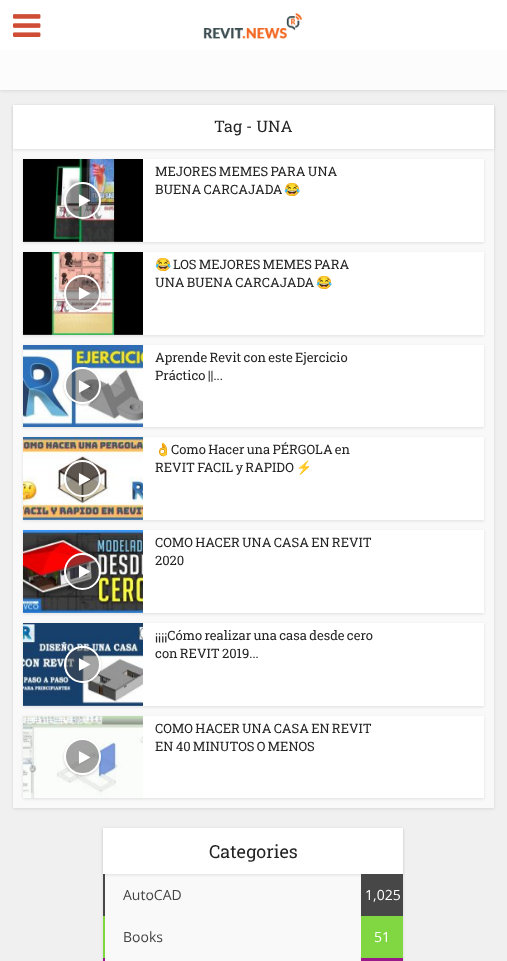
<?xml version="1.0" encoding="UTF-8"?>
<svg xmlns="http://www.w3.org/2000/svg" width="507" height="961">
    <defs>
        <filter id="blur1" x="-50%" y="-200%" width="200%" height="500%"><feGaussianBlur stdDeviation="1.5"/></filter>
        <clipPath id="clip1"><path d="M 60 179 H 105 V 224 H 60 Z M 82.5 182 C 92.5 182 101 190.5 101 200.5 C 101 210.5 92.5 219 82.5 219 C 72.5 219 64 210.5 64 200.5 C 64 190.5 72.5 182 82.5 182 Z" clip-rule="evenodd"/></clipPath>
        <filter id="blur2" x="-50%" y="-200%" width="200%" height="500%"><feGaussianBlur stdDeviation="1"/></filter>
        <clipPath id="clip2"><path d="M 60 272 H 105 V 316 H 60 Z M 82.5 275 C 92.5 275 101 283.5 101 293.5 C 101 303.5 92.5 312 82.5 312 C 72.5 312 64 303.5 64 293.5 C 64 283.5 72.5 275 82.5 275 Z" clip-rule="evenodd"/></clipPath>
        <clipPath id="clip3"><path d="M 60 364 H 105 V 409 H 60 Z M 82.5 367 C 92.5 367 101 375.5 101 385.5 C 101 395.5 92.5 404 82.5 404 C 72.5 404 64 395.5 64 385.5 C 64 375.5 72.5 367 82.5 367 Z" clip-rule="evenodd"/></clipPath>
        <clipPath id="clip4"><path d="M 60 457 H 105 V 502 H 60 Z M 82.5 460 C 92.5 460 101 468.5 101 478.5 C 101 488.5 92.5 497 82.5 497 C 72.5 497 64 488.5 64 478.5 C 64 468.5 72.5 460 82.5 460 Z" clip-rule="evenodd"/></clipPath>
        <clipPath id="clip5"><path d="M 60 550 H 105 V 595 H 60 Z M 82.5 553 C 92.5 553 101 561.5 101 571.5 C 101 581.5 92.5 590 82.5 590 C 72.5 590 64 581.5 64 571.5 C 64 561.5 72.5 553 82.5 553 Z" clip-rule="evenodd"/></clipPath>
        <clipPath id="clip6"><path d="M 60 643 H 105 V 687 H 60 Z M 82.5 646 C 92.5 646 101 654.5 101 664.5 C 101 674.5 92.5 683 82.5 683 C 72.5 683 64 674.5 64 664.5 C 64 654.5 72.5 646 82.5 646 Z" clip-rule="evenodd"/></clipPath>
        <clipPath id="clip7"><path d="M 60 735 H 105 V 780 H 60 Z M 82.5 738 C 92.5 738 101 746.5 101 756.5 C 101 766.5 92.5 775 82.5 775 C 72.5 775 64 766.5 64 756.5 C 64 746.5 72.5 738 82.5 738 Z" clip-rule="evenodd"/></clipPath>
    </defs>
    <rect width="100%" height="100%" fill="#F0F0F0"/>
    <rect x="0" y="1" width="507" height="90" fill="#000000" fill-opacity="0.1" filter="url(#blur1)"/>
    <rect x="0" y="0" width="507" height="50" fill="#FFFFFF"/>
    <image x="13" y="14" width="28" height="23" href="img_01.png"/>
    <image x="203" y="12" width="100" height="27" href="img_02.png"/>
    <rect x="0" y="50" width="507" height="40" fill="#FCFCFC"/>
    <rect x="13" y="106" width="481" height="703" fill="#000000" fill-opacity="0.1" filter="url(#blur1)"/>
    <rect x="13" y="149" width="481" height="659" fill="#F9F9F9"/>
    <rect x="13" y="106" width="481" height="44" fill="#000000" fill-opacity="0.1" filter="url(#blur1)"/>
    <rect x="13" y="105" width="481" height="44" fill="#FFFFFF"/>
    <text x="214" y="132" font-family="Roboto Slab" font-size="16" fill="#232323">Tag - UNA</text>
    <rect x="23" y="160" width="461" height="83" fill="#000000" fill-opacity="0.1" filter="url(#blur1)"/>
    <rect x="23" y="159" width="461" height="83" fill="#FFFFFF"/>
    <image x="23" y="159" width="120" height="83" href="img_03.png"/>
    <g clip-path="url(#clip1)">
        <rect x="64" y="183" width="37" height="37" rx="18.5" fill="#000000" fill-opacity="0.2" filter="url(#blur2)"/>
    </g>
    <circle cx="82.5" cy="200.5" r="17.5" fill="#4A4A4A" fill-opacity="0.5" stroke="#FFFFFF" stroke-width="2"/>
    <image x="78" y="194" width="13" height="13" href="img_04.png"/>
    <text font-family="Roboto Slab" font-size="13" fill="#232323">
        <tspan x="155" y="176" word-spacing="-1">MEJORES MEMES PARA UNA</tspan>
        <tspan x="155" y="194" word-spacing="-1">BUENA CARCAJADA</tspan>
    </text>
    <text x="284" y="194" font-family="Noto Color Emoji" font-size="13" fill="#232323">😂</text>
    <rect x="23" y="253" width="461" height="83" fill="#000000" fill-opacity="0.1" filter="url(#blur1)"/>
    <rect x="23" y="252" width="461" height="83" fill="#FFFFFF"/>
    <image x="23" y="252" width="120" height="83" href="img_05.png"/>
    <g clip-path="url(#clip2)">
        <rect x="64" y="276" width="37" height="36" rx="18" fill="#000000" fill-opacity="0.2" filter="url(#blur2)"/>
    </g>
    <circle cx="82.5" cy="293.5" r="17.5" fill="#4A4A4A" fill-opacity="0.5" stroke="#FFFFFF" stroke-width="2"/>
    <image x="78" y="287" width="13" height="13" href="img_06.png"/>
    <text x="155" y="269" font-family="Noto Color Emoji" font-size="13" fill="#232323">😂</text>
    <text x="173" y="269" word-spacing="-1" font-family="Roboto Slab" font-size="13" fill="#232323">LOS MEJORES MEMES PARA</text>
    <text x="155" y="287" word-spacing="-1" font-family="Roboto Slab" font-size="13" fill="#232323">UNA BUENA CARCAJADA</text>
    <text x="316" y="287" font-family="Noto Color Emoji" font-size="13" fill="#232323">😂</text>
    <rect x="23" y="346" width="461" height="82" fill="#000000" fill-opacity="0.1" filter="url(#blur1)"/>
    <rect x="143" y="345" width="341" height="82" fill="#FFFFFF"/>
    <image x="23" y="345" width="120" height="82" href="img_07.png"/>
    <g clip-path="url(#clip3)">
        <rect x="64" y="368" width="37" height="37" rx="18.5" fill="#000000" fill-opacity="0.2" filter="url(#blur2)"/>
    </g>
    <circle cx="82.5" cy="385.5" r="17.5" fill="#4A4A4A" fill-opacity="0.5" stroke="#FFFFFF" stroke-width="2"/>
    <image x="78" y="380" width="13" height="13" href="img_08.png"/>
    <text font-family="Roboto Slab" font-size="13" fill="#232323">
        <tspan x="155" y="362" word-spacing="-1">Aprende Revit con este Ejercicio</tspan>
        <tspan x="155" y="380" word-spacing="-1">Práctico ||...</tspan>
    </text>
    <rect x="23" y="438" width="461" height="83" fill="#000000" fill-opacity="0.1" filter="url(#blur1)"/>
    <rect x="23" y="437" width="461" height="83" fill="#FFFFFF"/>
    <image x="23" y="437" width="120" height="83" href="img_09.png"/>
    <g clip-path="url(#clip4)">
        <rect x="64" y="461" width="37" height="37" rx="18.5" fill="#000000" fill-opacity="0.2" filter="url(#blur2)"/>
    </g>
    <circle cx="82.5" cy="478.5" r="17.5" fill="#4A4A4A" fill-opacity="0.5" stroke="#FFFFFF" stroke-width="2"/>
    <image x="78" y="473" width="13" height="13" href="img_10.png"/>
    <text x="155" y="454" font-family="Noto Color Emoji" font-size="13" fill="#232323">👌</text>
    <text x="171" y="454" word-spacing="-1" font-family="Roboto Slab" font-size="13" fill="#232323">Como Hacer una PÉRGOLA en</text>
    <text x="155" y="472" word-spacing="-1" font-family="Roboto Slab" font-size="13" fill="#232323">REVIT FACIL y RAPIDO</text>
    <text x="296" y="472" font-family="Noto Color Emoji" font-size="13" fill="#232323">⚡</text>
    <rect x="23" y="531" width="461" height="83" fill="#000000" fill-opacity="0.1" filter="url(#blur1)"/>
    <rect x="23" y="530" width="461" height="83" fill="#FFFFFF"/>
    <image x="23" y="530" width="120" height="83" href="img_11.png"/>
    <g clip-path="url(#clip5)">
        <rect x="64" y="554" width="37" height="37" rx="18.5" fill="#000000" fill-opacity="0.2" filter="url(#blur2)"/>
    </g>
    <circle cx="82.5" cy="571.5" r="17.5" fill="#4A4A4A" fill-opacity="0.5" stroke="#FFFFFF" stroke-width="2"/>
    <image x="78" y="565" width="13" height="13" href="img_12.png"/>
    <text font-family="Roboto Slab" font-size="13" fill="#232323">
        <tspan x="155" y="547" word-spacing="-1">COMO HACER UNA CASA EN REVIT</tspan>
        <tspan x="155" y="565">2020</tspan>
    </text>
    <rect x="23" y="624" width="461" height="83" fill="#000000" fill-opacity="0.1" filter="url(#blur1)"/>
    <rect x="23" y="623" width="461" height="83" fill="#FFFFFF"/>
    <image x="23" y="623" width="120" height="83" href="img_13.png"/>
    <g clip-path="url(#clip6)">
        <rect x="64" y="647" width="37" height="36" rx="18" fill="#000000" fill-opacity="0.2" filter="url(#blur2)"/>
    </g>
    <circle cx="82.5" cy="664.5" r="17.5" fill="#4A4A4A" fill-opacity="0.5" stroke="#FFFFFF" stroke-width="2"/>
    <image x="78" y="658" width="13" height="13" href="img_14.png"/>
    <text font-family="Roboto Slab" font-size="13" fill="#232323">
        <tspan x="155" y="640" word-spacing="-1">¡¡¡¡Cómo realizar una casa desde cero</tspan>
        <tspan x="155" y="658" word-spacing="-1">con REVIT 2019...</tspan>
    </text>
    <rect x="23" y="717" width="461" height="82" fill="#000000" fill-opacity="0.1" filter="url(#blur1)"/>
    <rect x="143" y="716" width="341" height="82" fill="#FFFFFF"/>
    <image x="23" y="716" width="120" height="82" href="img_15.png"/>
    <g clip-path="url(#clip7)">
        <rect x="64" y="739" width="37" height="37" rx="18.5" fill="#000000" fill-opacity="0.2" filter="url(#blur2)"/>
    </g>
    <circle cx="82.5" cy="756.5" r="17.5" fill="#4A4A4A" fill-opacity="0.5" stroke="#FFFFFF" stroke-width="2"/>
    <image x="78" y="751" width="13" height="13" href="img_16.png"/>
    <text font-family="Roboto Slab" font-size="13" fill="#232323">
        <tspan x="155" y="733" word-spacing="-1">COMO HACER UNA CASA EN REVIT</tspan>
        <tspan x="155" y="751" word-spacing="-1">EN 40 MINUTOS O MENOS</tspan>
    </text>
    <rect x="103" y="829" width="300" height="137" fill="#000000" fill-opacity="0.1" filter="url(#blur1)"/>
    <rect x="105" y="874" width="256" height="87" fill="#F9F9F9"/>
    <rect x="103" y="829" width="300" height="46" fill="#000000" fill-opacity="0.1" filter="url(#blur1)"/>
    <rect x="103" y="828" width="300" height="46" fill="#FFFFFF"/>
    <text x="209" y="858" font-family="Roboto Slab" font-size="18" fill="#232323">Categories</text>
    <rect x="103" y="874" width="2" height="42" fill="#474747"/>
    <text x="123" y="900" font-family="Open Sans" font-size="14" fill="#444444">AutoCAD</text>
    <rect x="361" y="874" width="42" height="42" fill="#474747"/>
    <text x="365" y="900" font-family="Open Sans" font-size="14" fill="#FFFFFF">1,025</text>
    <rect x="103" y="916" width="2" height="42" fill="#81D742"/>
    <text x="123" y="942" font-family="Open Sans" font-size="14" fill="#444444">Books</text>
    <rect x="361" y="916" width="42" height="42" fill="#81D742"/>
    <text x="374" y="942" font-family="Open Sans" font-size="14" fill="#FFFFFF">51</text>
    <rect x="103" y="958" width="2" height="3" fill="#99188A"/>
    <rect x="361" y="958" width="42" height="3" fill="#99188A"/>
</svg>
